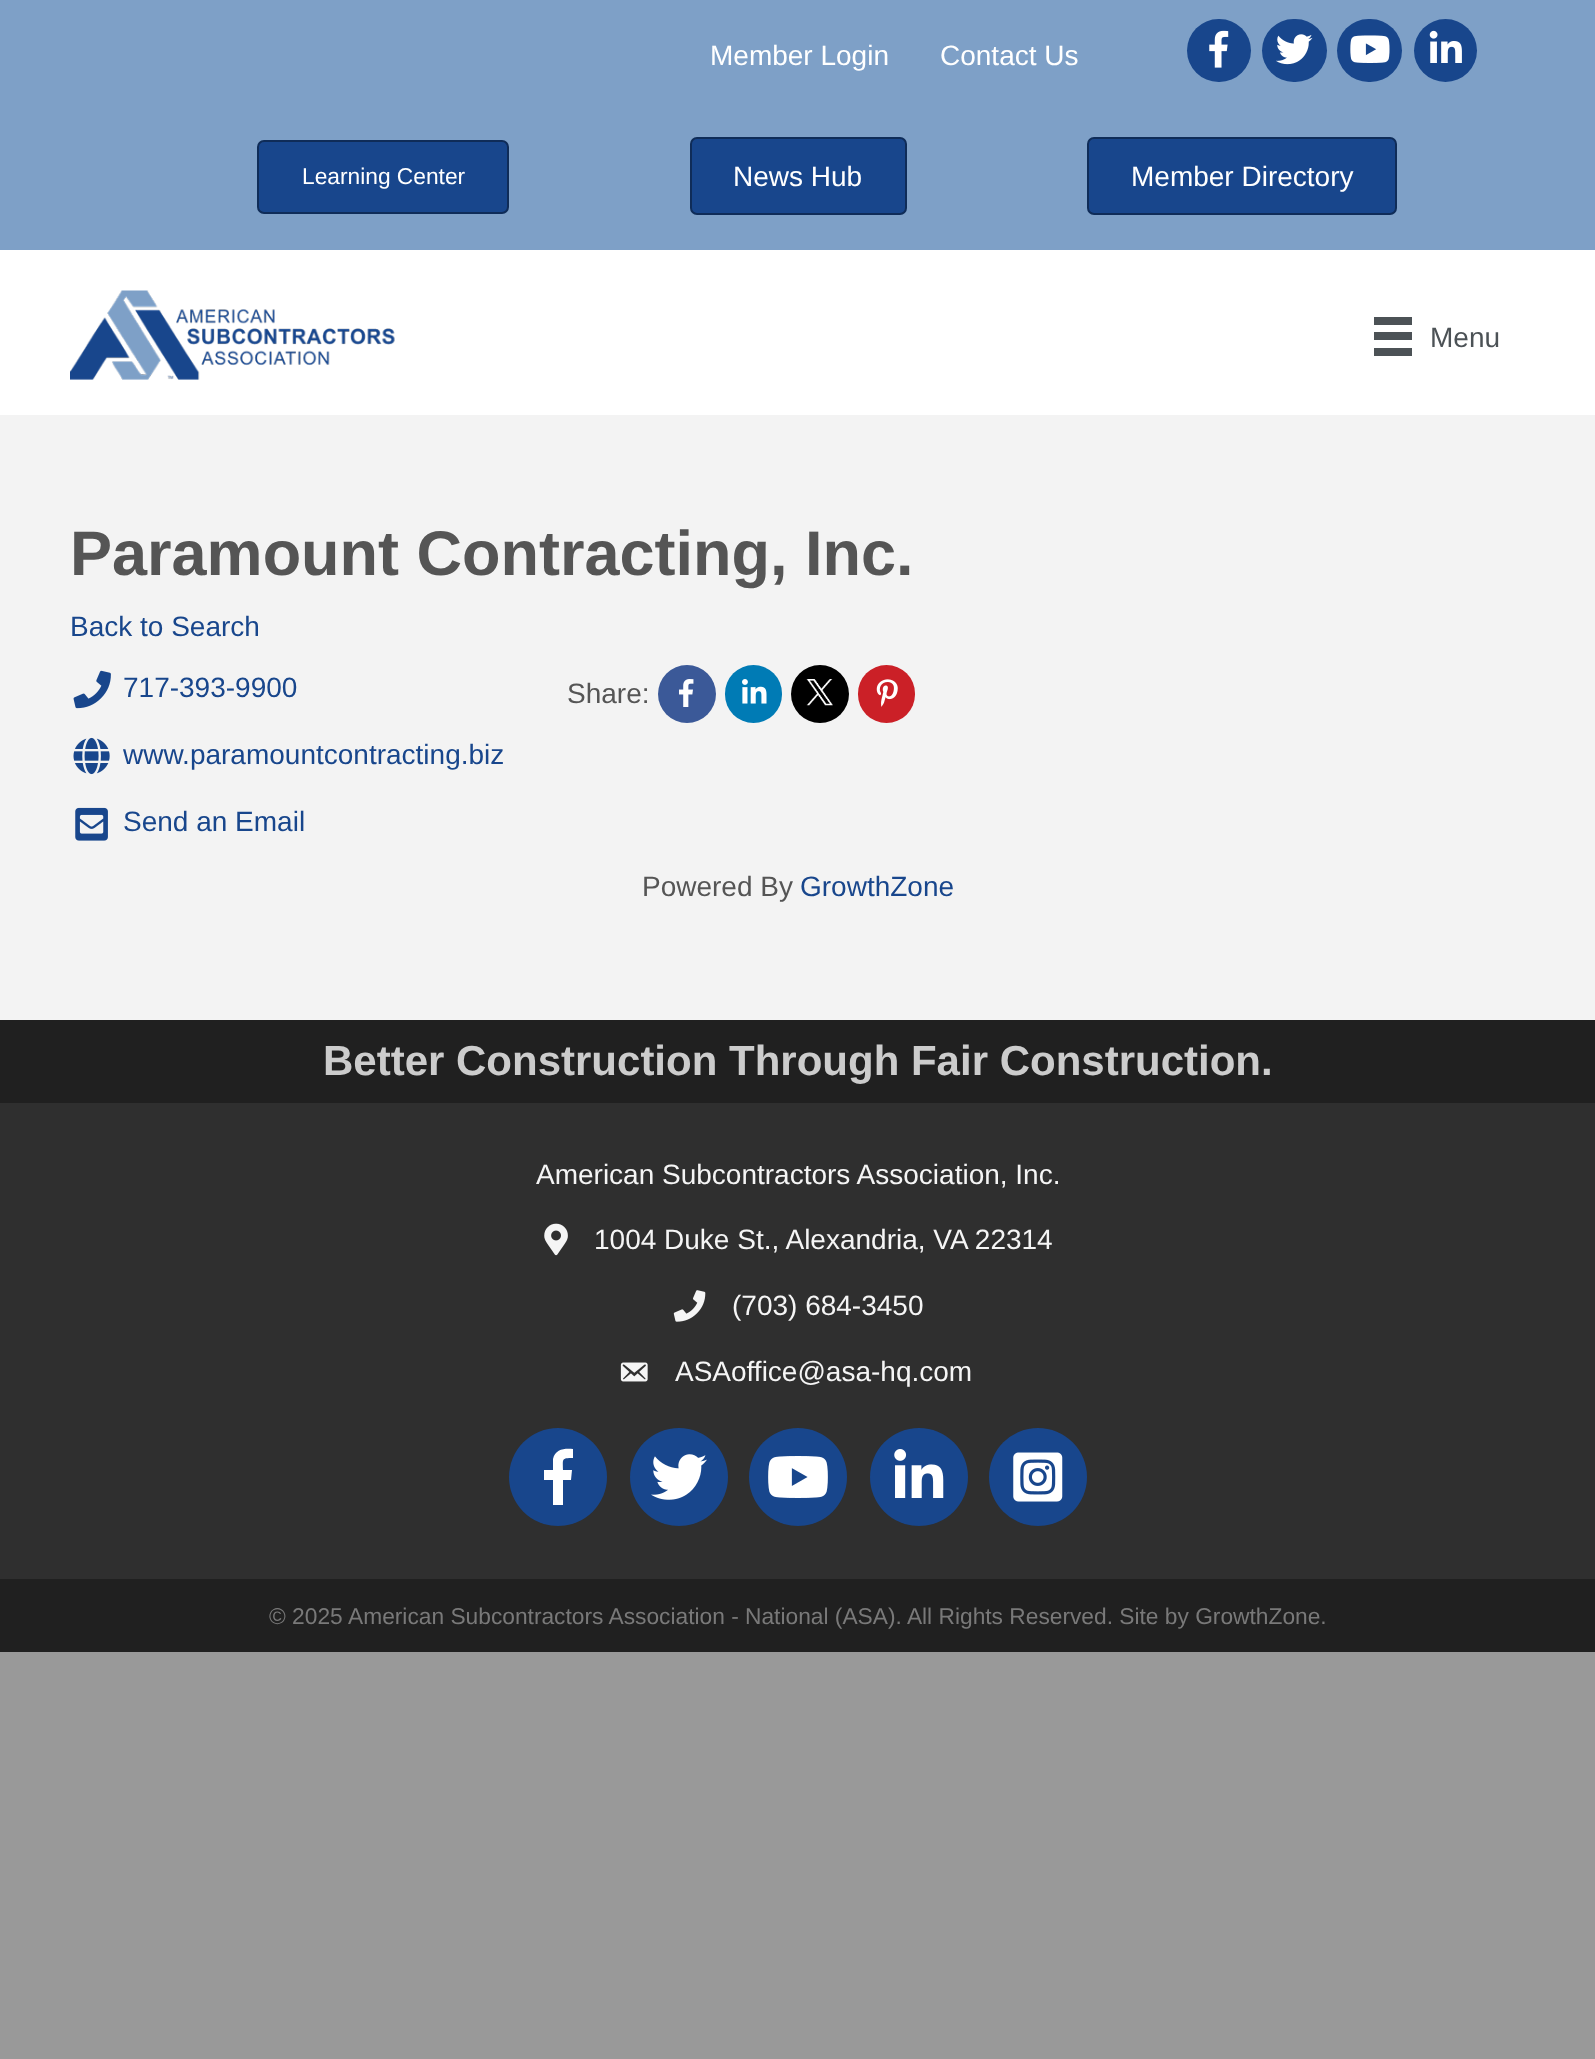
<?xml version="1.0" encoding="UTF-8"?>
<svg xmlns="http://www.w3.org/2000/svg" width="1595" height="2059">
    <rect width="100%" height="100%" fill="#999999"/>
    <rect x="0" y="0" width="1595" height="250" fill="#7EA0C7"/>
    <text x="710" y="65" font-family="Liberation Sans" font-size="28" fill="#FFFFFF">Member Login</text>
    <text x="940" y="65" font-family="Liberation Sans" font-size="28" fill="#FFFFFF">Contact Us</text>
    <rect x="1187" y="19" width="64" height="63" rx="31.5" fill="#18468C"/>
    <image x="1209" y="30" width="20" height="38" href="img_01.png"/>
    <rect x="1262" y="19" width="65" height="63" rx="31.5" fill="#18468C"/>
    <image x="1276" y="34" width="37" height="31" href="img_02.png"/>
    <rect x="1337" y="19" width="65" height="63" rx="31.5" fill="#18468C"/>
    <image x="1350" y="35" width="40" height="28" href="img_03.png"/>
    <circle cx="1445.5" cy="50.5" r="31.5" fill="#18468C"/>
    <image x="1429" y="30" width="33" height="33" href="img_04.png"/>
    <rect x="258" y="141" width="250" height="72" rx="6" fill="#18468C" stroke="#0F2C58" stroke-width="2"/>
    <text x="302" y="184" font-family="Liberation Sans" font-size="22.75" fill="#FFFFFF">Learning Center</text>
    <rect x="691" y="138" width="215" height="76" rx="6" fill="#18468C" stroke="#0F2C58" stroke-width="2"/>
    <text x="733" y="186" font-family="Liberation Sans" font-size="28" fill="#FFFFFF">News Hub</text>
    <rect x="1088" y="138" width="308" height="76" rx="6" fill="#18468C" stroke="#0F2C58" stroke-width="2"/>
    <text x="1131" y="186" font-family="Liberation Sans" font-size="28" fill="#FFFFFF">Member Directory</text>
    <rect x="0" y="250" width="1595" height="165" fill="#FFFFFF"/>
    <image x="70" y="290" width="325" height="90" href="img_05.png"/>
    <rect x="1374" y="317" width="38" height="8" fill="#4C5256"/>
    <rect x="1374" y="332" width="38" height="8" fill="#4C5256"/>
    <rect x="1374" y="348" width="38" height="8" fill="#4C5256"/>
    <text x="1430" y="347" font-family="Liberation Sans" font-size="28" fill="#4C5256">Menu</text>
    <rect x="0" y="415" width="1595" height="605" fill="#F3F3F3"/>
    <text x="70" y="575" font-family="Liberation Sans" font-size="63" font-weight="700" fill="#555555">Paramount Contracting, Inc.</text>
    <text x="70" y="636" font-family="Liberation Sans" font-size="28" fill="#18468C">Back to Search</text>
    <image x="73" y="670" width="38" height="39" href="img_06.png"/>
    <text x="123" y="697" font-family="Liberation Sans" font-size="28" fill="#18468C">717-393-9900</text>
    <image x="73" y="737" width="37" height="38" href="img_07.png"/>
    <text x="123" y="764" font-family="Liberation Sans" font-size="28" fill="#18468C">www.paramountcontracting.biz</text>
    <image x="75" y="807" width="33" height="34" href="img_08.png"/>
    <text x="123" y="831" font-family="Liberation Sans" font-size="28" fill="#18468C">Send an Email</text>
    <text x="567" y="703" font-family="Liberation Sans" font-size="28" fill="#555555">Share:</text>
    <circle cx="687" cy="694" r="29" fill="#3B5998"/>
    <image x="679" y="679" width="15" height="28" href="img_09.png"/>
    <rect x="725" y="665" width="57" height="58" rx="28.5" fill="#007BB5"/>
    <image x="742" y="679" width="25" height="25" href="img_10.png"/>
    <circle cx="820" cy="694" r="29" fill="#000000"/>
    <image x="806" y="679" width="27" height="27" href="img_11.png"/>
    <rect x="858" y="665" width="57" height="58" rx="28.5" fill="#CB2027"/>
    <image x="876" y="679" width="22" height="28" href="img_12.png"/>
    <text x="642" y="896" font-family="Liberation Sans" font-size="28" fill="#555555">Powered By</text>
    <text x="800" y="896" font-family="Liberation Sans" font-size="28" fill="#18468C">GrowthZone</text>
    <rect x="0" y="1020" width="1595" height="83" fill="#202020"/>
    <text x="323" y="1075" font-family="Liberation Sans" font-size="42" font-weight="700" fill="#CCCCCC">Better Construction Through Fair Construction.</text>
    <rect x="0" y="1103" width="1595" height="476" fill="#2F2F2F"/>
    <text x="536" y="1184" font-family="Liberation Sans" font-size="28" fill="#F5F5F5">American Subcontractors Association, Inc.</text>
    <image x="544" y="1223" width="24" height="33" href="img_13.png"/>
    <text x="594" y="1249" font-family="Liberation Sans" font-size="28" fill="#F5F5F5">1004 Duke St., Alexandria, VA 22314</text>
    <image x="673" y="1290" width="33" height="32" href="img_14.png"/>
    <text x="732" y="1315" font-family="Liberation Sans" font-size="28" fill="#F5F5F5">(703) 684-3450</text>
    <image x="620" y="1362" width="28" height="20" href="img_15.png"/>
    <text x="675" y="1381" font-family="Liberation Sans" font-size="28" fill="#F5F5F5">ASAoffice@asa-hq.com</text>
    <circle cx="558" cy="1477" r="49" fill="#18468C"/>
    <path d="M 553 1505 V 1480 H 544 V 1470 H 553 V 1459 C 555 1449 565 1448 573 1449 V 1458 C 561 1458 563 1459 563 1470 H 572 L 571 1480 H 563 V 1505 Z" fill="#FFFFFF"/>
    <circle cx="679" cy="1477" r="49" fill="#18468C"/>
    <image x="651" y="1454" width="56" height="46" href="img_16.png"/>
    <circle cx="798" cy="1477" r="49" fill="#18468C"/>
    <image x="768" y="1456" width="60" height="42" href="img_17.png"/>
    <circle cx="919" cy="1477" r="49" fill="#18468C"/>
    <image x="894" y="1449" width="50" height="49" href="img_18.png"/>
    <circle cx="1038" cy="1477" r="49" fill="#18468C"/>
    <image x="1013" y="1452" width="50" height="50" href="img_19.png"/>
    <rect x="0" y="1579" width="1595" height="73" fill="#202020"/>
    <text x="269" y="1624" font-family="Liberation Sans" font-size="22.75" fill="#797979">© 2025</text>
    <text x="348" y="1624" font-family="Liberation Sans" font-size="22.75" fill="#797979">American Subcontractors Association - National (ASA). All Rights Reserved. Site by GrowthZone.</text>
</svg>
